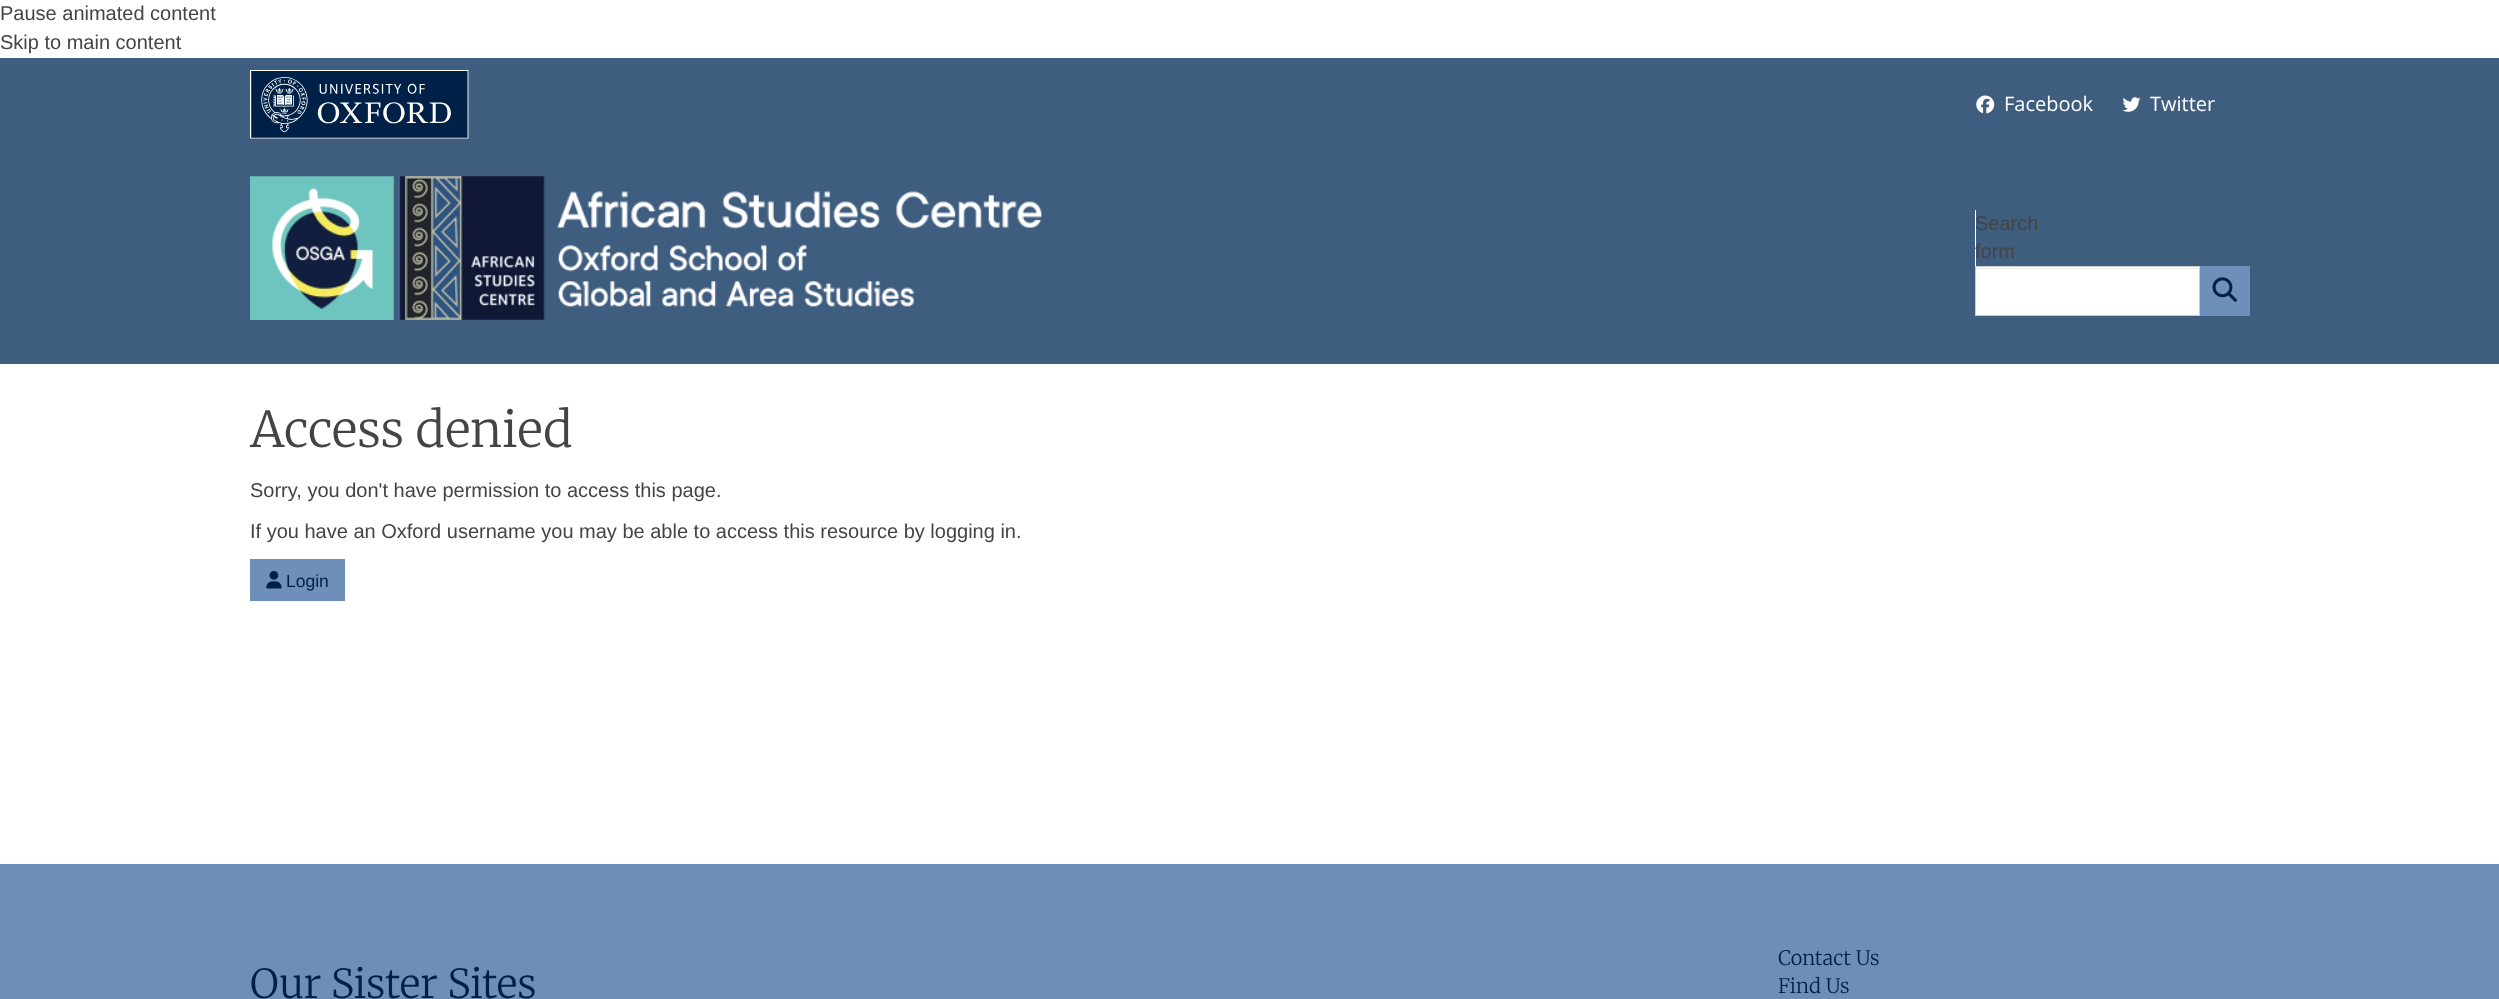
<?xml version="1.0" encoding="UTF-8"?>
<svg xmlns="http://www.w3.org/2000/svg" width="2499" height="999">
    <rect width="100%" height="100%" fill="#FFFFFF"/>
    <text font-family="Liberation Sans" font-size="20" fill="#444444">
        <tspan x="0" y="20">Pause animated content</tspan>
        <tspan x="0" y="49">Skip to main content</tspan>
    </text>
    <rect x="0" y="58" width="2499" height="306" fill="#3F5D7F"/>
    <image x="250" y="70" width="219" height="69" href="img_01.png"/>
    <image x="1976" y="95" width="19" height="19" href="img_02.png"/>
    <text x="2004" y="111" font-family="Open Sans" font-size="20" fill="#FFFFFF">Facebook</text>
    <image x="2122" y="97" width="19" height="15" href="img_03.png"/>
    <text x="2150" y="111" font-family="Open Sans" font-size="20" fill="#FFFFFF">Twitter</text>
    <image x="250" y="176" width="792" height="144" href="img_04.png"/>
    <rect x="1975" y="210" width="1" height="56" fill="#FFFFFF"/>
    <text font-family="Liberation Sans" font-size="20" fill="#444444">
        <tspan x="1975" y="230">Search</tspan>
        <tspan x="1975" y="258">form</tspan>
    </text>
    <rect x="1976" y="267" width="223" height="48" fill="#FFFFFF"/>
    <rect x="1976" y="268" width="223" height="1" fill="#ECECEC"/>
    <rect x="1975.5" y="266.5" width="224" height="49" fill="none" stroke="#CCCCCC"/>
    <rect x="2200" y="266" width="50" height="50" fill="#6D8FB9"/>
    <image x="2212" y="277" width="25" height="25" href="img_05.png"/>
    <text x="250" y="447" font-family="Merriweather" font-size="49" font-weight="300" fill="#444444">Access denied</text>
    <text x="250" y="497" font-family="Liberation Sans" font-size="20" fill="#444444">Sorry, you don't have permission to access this page.</text>
    <text x="250" y="538" font-family="Liberation Sans" font-size="20" fill="#444444">If you have an Oxford username you may be able to access this resource by logging in.</text>
    <rect x="250" y="559" width="95" height="42" fill="#6D8FB9"/>
    <image x="266" y="571" width="16" height="18" href="img_06.png"/>
    <text x="286" y="587" font-family="Liberation Sans" font-size="17.5" fill="#002147">Login</text>
    <rect x="0" y="864" width="2499" height="135" fill="#6D8FB7"/>
    <text x="250" y="998" font-family="Merriweather" font-size="40" font-weight="300" fill="#002147">Our Sister Sites</text>
    <text font-family="Merriweather" font-size="20" font-weight="300" fill="#002147">
        <tspan x="1778" y="965">Contact Us</tspan>
        <tspan x="1778" y="993">Find Us</tspan>
    </text>
</svg>
